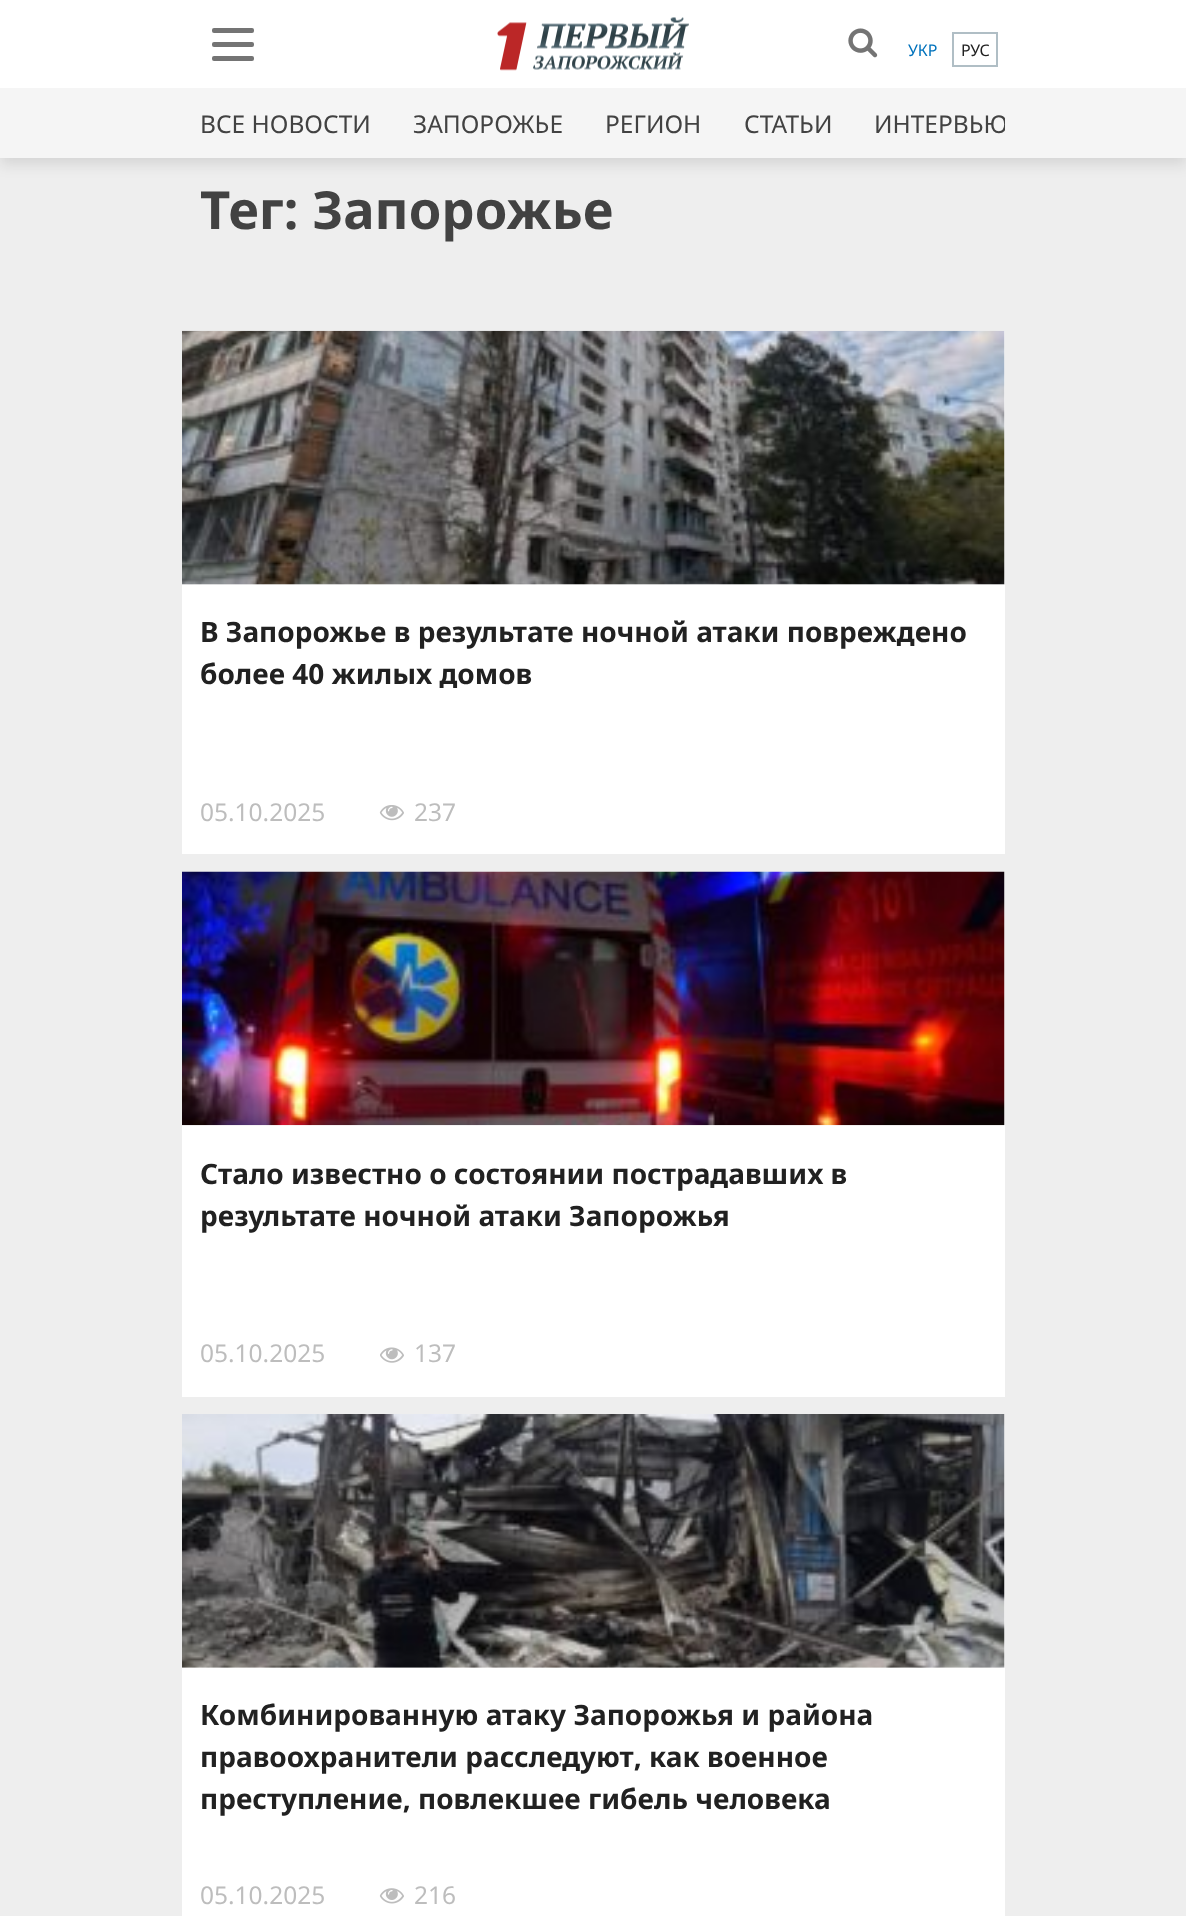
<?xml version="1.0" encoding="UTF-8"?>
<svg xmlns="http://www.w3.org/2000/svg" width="1186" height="1916">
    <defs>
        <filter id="blur1" x="-50%" y="-200%" width="200%" height="500%"><feGaussianBlur stdDeviation="7"/></filter>
        <clipPath id="clip1"><rect x="182" y="88" width="823" height="70"/></clipPath>
    </defs>
    <rect width="100%" height="100%" fill="#EEEEEE"/>
    <rect x="0" y="7" width="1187" height="158" fill="#000000" fill-opacity="0.1" filter="url(#blur1)"/>
    <rect x="0" y="0" width="1186" height="88" fill="#FFFFFF"/>
    <rect x="212" y="28" width="42" height="5" rx="2" fill="#747474"/>
    <rect x="212" y="42" width="42" height="5" rx="2" fill="#747474"/>
    <rect x="212" y="56" width="42" height="5" rx="2" fill="#747474"/>
    <image x="848" y="28" width="30" height="30" href="img_01.png"/>
    <image x="497" y="17" width="192" height="54" href="img_02.png"/>
    <text x="908" y="56" font-family="Noto Sans" font-size="16" fill="#0072BC">УКР</text>
    <rect x="953" y="33" width="44" height="33" fill="none" stroke="#B0BEC5" stroke-width="2"/>
    <text x="961" y="56" font-family="Noto Sans" font-size="16" fill="#212121">РУС</text>
    <rect x="0" y="88" width="1186" height="70" fill="#F5F5F5"/>
    <text x="200" y="133" font-family="Noto Sans" font-size="24.5" fill="#424242">ВСЕ НОВОСТИ</text>
    <text x="413" y="133" font-family="Noto Sans" font-size="24.5" fill="#424242">ЗАПОРОЖЬЕ</text>
    <text x="605" y="133" font-family="Noto Sans" font-size="24.5" fill="#424242">РЕГИОН</text>
    <text x="744" y="133" font-family="Noto Sans" font-size="24.5" fill="#424242">СТАТЬИ</text>
    <g clip-path="url(#clip1)">
        <text x="874" y="133" font-family="Noto Sans" font-size="24.5" fill="#424242">ИНТЕРВЬЮ</text>
    </g>
    <text x="200" y="229" font-family="Noto Sans" font-size="52.5" font-weight="700" fill="#424242">Тег: Запорожье</text>
    <rect x="182" y="585" width="823" height="269" fill="#FFFFFF"/>
    <rect x="182" y="331" width="823" height="254" fill="#F6F6F6"/>
    <image x="182" y="330" width="823" height="255" href="img_03.png"/>
    <text font-family="Noto Sans" font-size="28" font-weight="700" fill="#212121">
        <tspan x="200" y="642">В Запорожье в результате ночной атаки повреждено</tspan>
        <tspan x="200" y="684">более 40 жилых домов</tspan>
    </text>
    <text x="200" y="821" font-family="Noto Sans" font-size="24.5" fill="#BDBDBD">05.10.2025</text>
    <image x="379" y="805" width="25" height="16" href="img_04.png"/>
    <text x="414" y="821" font-family="Noto Sans" font-size="24.5" fill="#BDBDBD">237</text>
    <rect x="182" y="1125" width="823" height="272" fill="#FFFFFF"/>
    <rect x="1004" y="872" width="1" height="253" fill="#F6F6F6"/>
    <image x="182" y="871" width="823" height="255" href="img_05.png"/>
    <text font-family="Noto Sans" font-size="28" font-weight="700" fill="#212121">
        <tspan x="200" y="1184">Стало известно о состоянии пострадавших в</tspan>
        <tspan x="200" y="1226">результате ночной атаки Запорожья</tspan>
    </text>
    <text x="200" y="1362" font-family="Noto Sans" font-size="24.5" fill="#BDBDBD">05.10.2025</text>
    <image x="380" y="1347" width="24" height="16" href="img_06.png"/>
    <text x="414" y="1362" font-family="Noto Sans" font-size="24.5" fill="#BDBDBD">137</text>
    <rect x="182" y="1668" width="823" height="248" fill="#FFFFFF"/>
    <rect x="182" y="1414" width="823" height="254" fill="#F6F6F6"/>
    <image x="182" y="1414" width="823" height="254" href="img_07.png"/>
    <text font-family="Noto Sans" font-size="28" font-weight="700" fill="#212121">
        <tspan x="200" y="1725">Комбинированную атаку Запорожья и района</tspan>
        <tspan x="200" y="1767">правоохранители расследуют, как военное</tspan>
        <tspan x="200" y="1809">преступление, повлекшее гибель человека</tspan>
    </text>
    <text x="200" y="1904" font-family="Noto Sans" font-size="24.5" fill="#BDBDBD">05.10.2025</text>
    <image x="379" y="1888" width="25" height="16" href="img_08.png"/>
    <text x="414" y="1904" font-family="Noto Sans" font-size="24.5" fill="#BDBDBD">216</text>
</svg>
